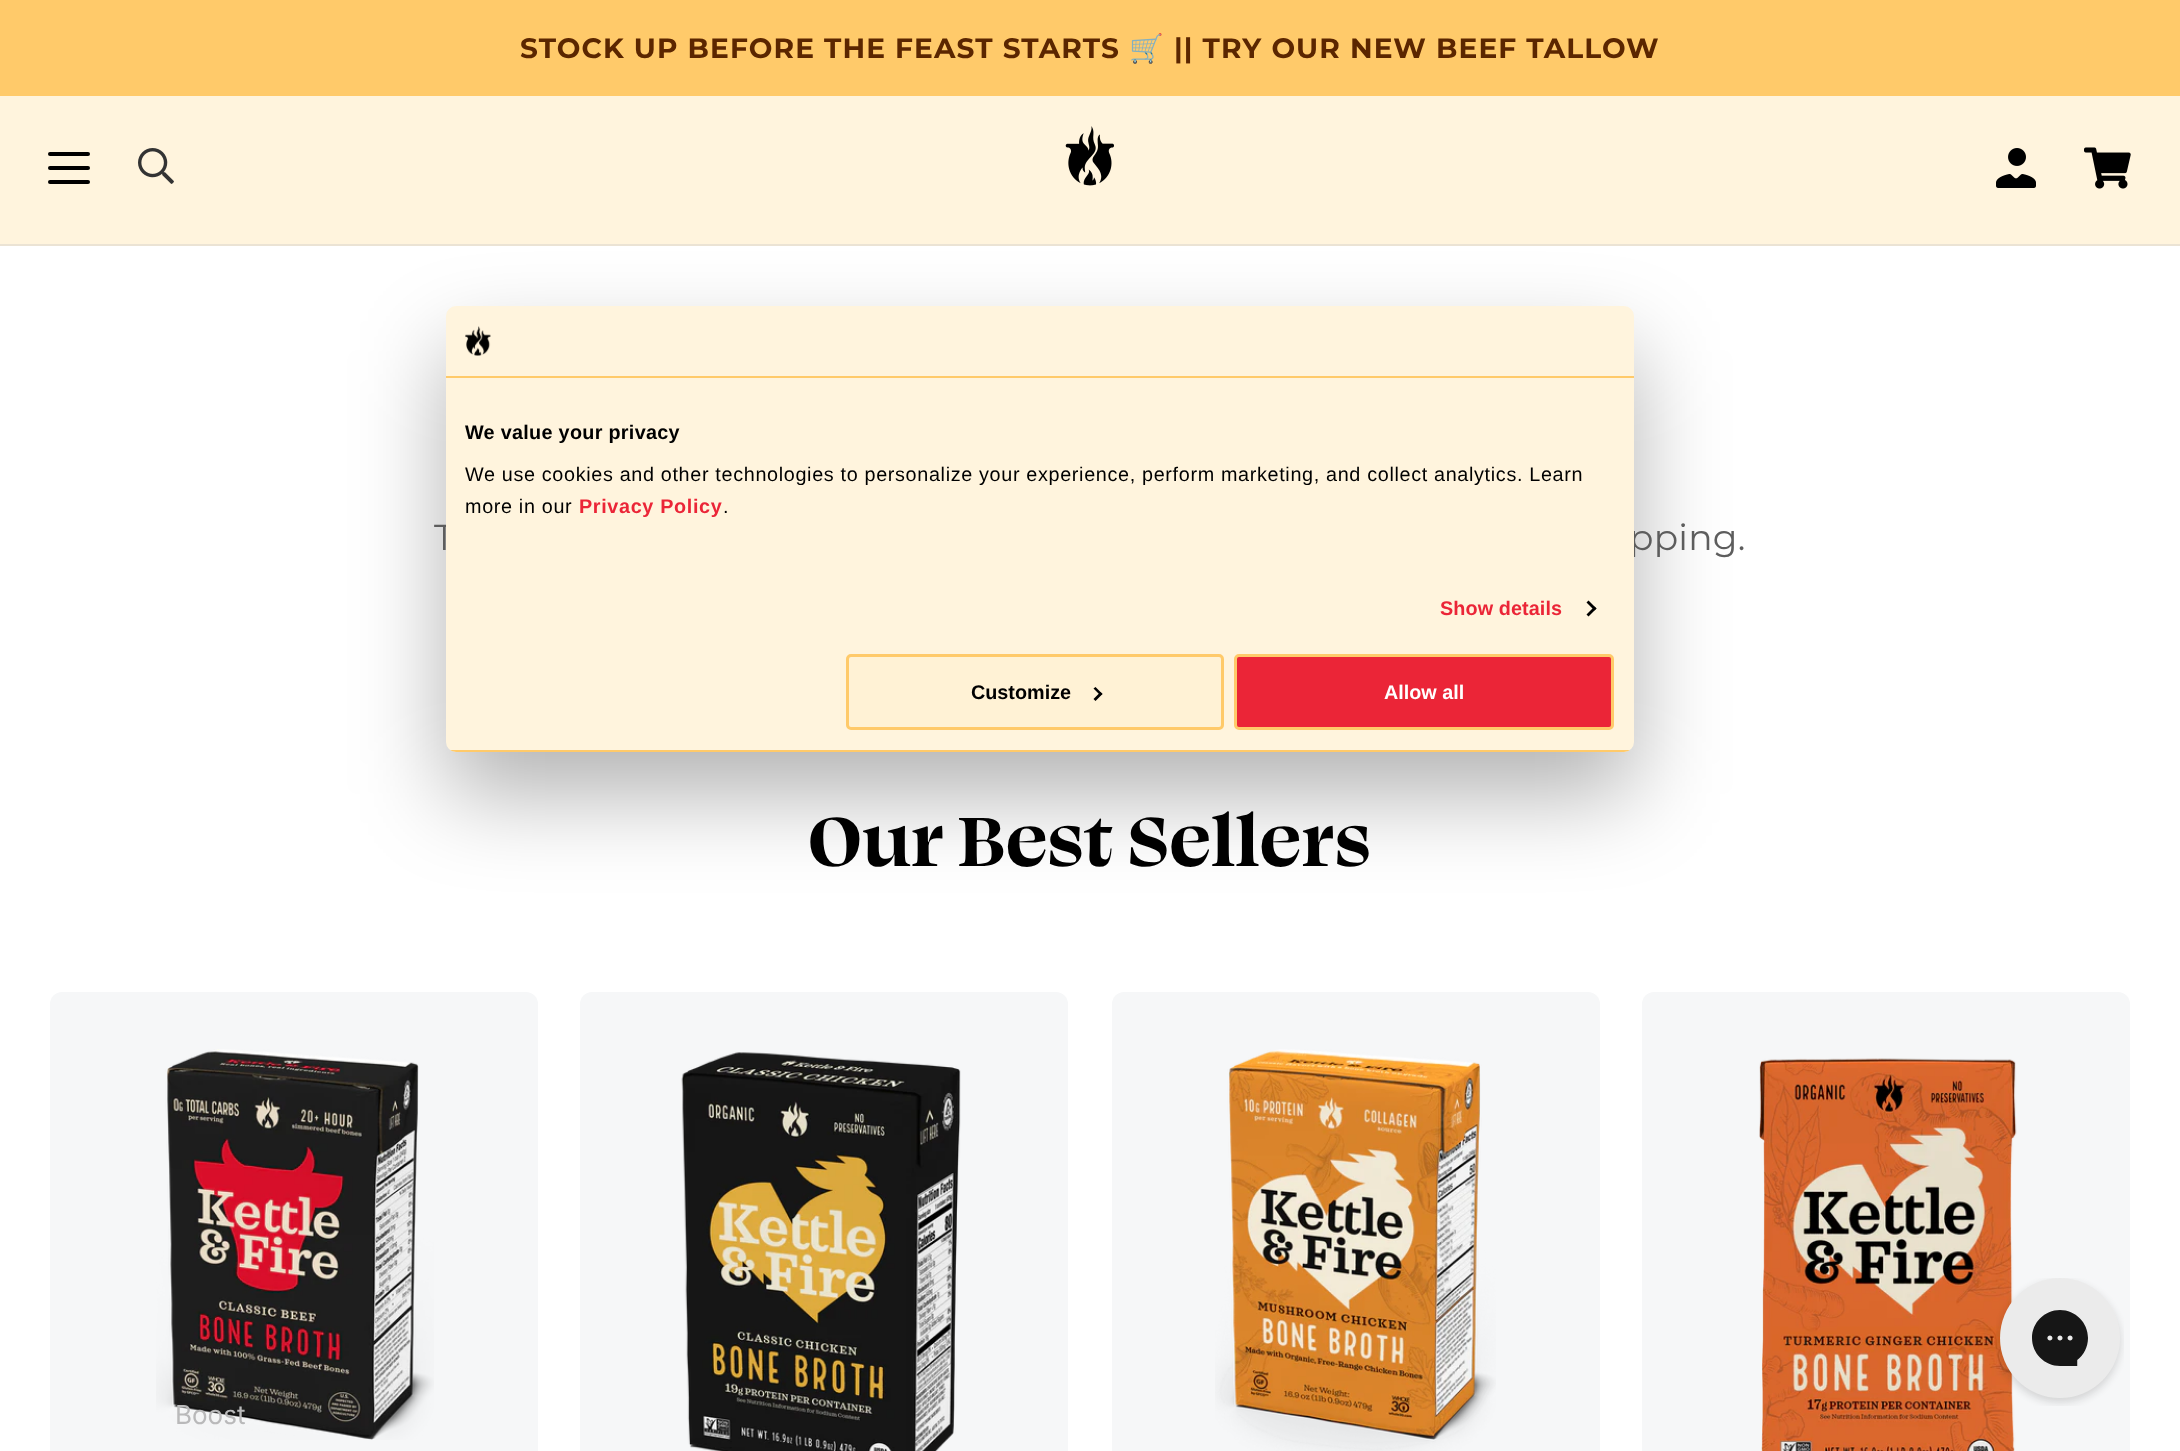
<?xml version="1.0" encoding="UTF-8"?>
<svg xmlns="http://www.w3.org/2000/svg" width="2180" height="1451">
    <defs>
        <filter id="blur1" x="-50%" y="-200%" width="200%" height="500%"><feGaussianBlur stdDeviation="45"/></filter>
        <clipPath id="clip1"><rect x="446" y="306" width="1188" height="446" rx="10"/></clipPath>
    </defs>
    <rect width="100%" height="100%" fill="#FFFFFF"/>
    <rect x="0" y="0" width="2180" height="96" fill="#FFCA6A"/>
    <text x="520" y="58" font-family="Montserrat" font-size="28" font-weight="700" letter-spacing="1.1" fill="#5B2600">STOCK UP BEFORE THE FEAST STARTS</text>
    <text x="1129" y="58" font-family="Noto Color Emoji" font-size="28" font-weight="700" letter-spacing="1.1" fill="#5B2600">🛒</text>
    <text x="1174" y="58" font-family="Montserrat" font-size="28" font-weight="700" letter-spacing="1.1" fill="#5B2600">|| TRY OUR NEW BEEF TALLOW</text>
    <rect x="0" y="244" width="2180" height="2" fill="#EBE3D4"/>
    <rect x="0" y="96" width="2180" height="148" fill="#FFF4DD"/>
    <rect x="446" y="350" width="1188" height="444" rx="10" fill="#000000" fill-opacity="0.3" filter="url(#blur1)"/>
    <text x="434" y="550" font-family="Montserrat" font-size="36" letter-spacing="0.25" fill="#5D5D5D">T</text>
    <text x="1629" y="550" font-family="Montserrat" font-size="36" letter-spacing="0.25" fill="#5D5D5D">pping.</text>
    <rect x="446" y="306" width="1188" height="446" rx="10" fill="#FFF4DD"/>
    <rect x="446" y="376" width="1188" height="2" fill="#FFCA6A"/>
    <image x="465" y="326" width="26" height="30" href="img_01.png"/>
    <text x="465" y="439" font-family="Liberation Sans" font-size="19.8" font-weight="700" letter-spacing="0.3" fill="#000000">We value your privacy</text>
    <text font-family="Liberation Sans" font-size="19.8" letter-spacing="0.66" fill="#000000">
        <tspan x="465" y="481">We use cookies and other technologies to personalize your experience, perform marketing, and collect analytics. Learn</tspan>
        <tspan x="465" y="513">more in our</tspan>
    </text>
    <text x="579" y="513" font-family="Liberation Sans" font-size="19.8" font-weight="700" letter-spacing="0.66" fill="#EB2537">Privacy Policy</text>
    <text x="723" y="513" font-family="Liberation Sans" font-size="19.8" letter-spacing="0.66" fill="#000000">.</text>
    <text x="1440" y="615" font-family="Liberation Sans" font-size="19.8" font-weight="700" letter-spacing="0.1" fill="#EB2537">Show details</text>
    <path d="M 1588.5 600.5 L 1596.5 608.5 L 1594.5 610.5 L 1586.5 602.5 Z" fill="#000000"/>
    <path d="M 1594.5 606.5 L 1596.5 608.5 L 1588.5 616.5 L 1586.5 614.5 Z" fill="#000000"/>
    <g clip-path="url(#clip1)">
        <rect x="446" y="750" width="1188" height="2" fill="#FFCA6A"/>
    </g>
    <rect x="847.5" y="655.5" width="375" height="73" rx="3.5" fill="#FFF2D5" stroke="#FFCA6A" stroke-width="3"/>
    <text x="971" y="699" font-family="Liberation Sans" font-size="19.8" font-weight="700" fill="#000000">Customize</text>
    <path d="M 1095.5 687 L 1102.5 694 L 1100.5 695.5 L 1093.5 688.5 Z" fill="#000000"/>
    <path d="M 1100.5 692 L 1102.5 694 L 1095.5 701 L 1093.5 699 Z" fill="#000000"/>
    <rect x="1235.5" y="655.5" width="377" height="73" rx="3.5" fill="#EB2537" stroke="#FFCA6A" stroke-width="3"/>
    <text x="1384" y="699" font-family="Liberation Sans" font-size="19.8" font-weight="700" fill="#FFFFFF">Allow all</text>
    <rect x="48" y="166" width="42" height="4" rx="2" fill="#000000"/>
    <rect x="48" y="152" width="42" height="4" rx="2" fill="#000000"/>
    <rect x="48" y="180" width="42" height="4" rx="2" fill="#000000"/>
    <image x="138" y="148" width="36" height="36" href="img_02.png"/>
    <image x="1065" y="126" width="49" height="60" href="img_03.png"/>
    <image x="1996" y="148" width="40" height="40" href="img_04.png"/>
    <image x="2084" y="147" width="47" height="42" href="img_05.png"/>
    <text x="808" y="866" font-family="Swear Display" font-size="80" font-weight="700" letter-spacing="0.5" fill="#000000">Our Best Sellers</text>
    <rect x="50" y="992" width="488" height="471" rx="12" fill="#F6F7F8"/>
    <image x="156" y="1049" width="278" height="391" href="img_06.png"/>
    <rect x="580" y="992" width="488" height="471" rx="12" fill="#F6F7F8"/>
    <image x="681" y="1052" width="280" height="399" href="img_07.png"/>
    <rect x="1112" y="992" width="488" height="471" rx="12" fill="#F6F7F8"/>
    <image x="1215" y="1049" width="281" height="402" href="img_08.png"/>
    <rect x="1642" y="992" width="488" height="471" rx="12" fill="#F6F7F8"/>
    <image x="1759" y="1058" width="258" height="393" href="img_09.png"/>
    <image x="1996" y="1278" width="128" height="128" href="img_10.png"/>
    <text x="175" y="1424" font-family="Inter" font-size="26" fill="#B9B9BA">Boost</text>
</svg>
